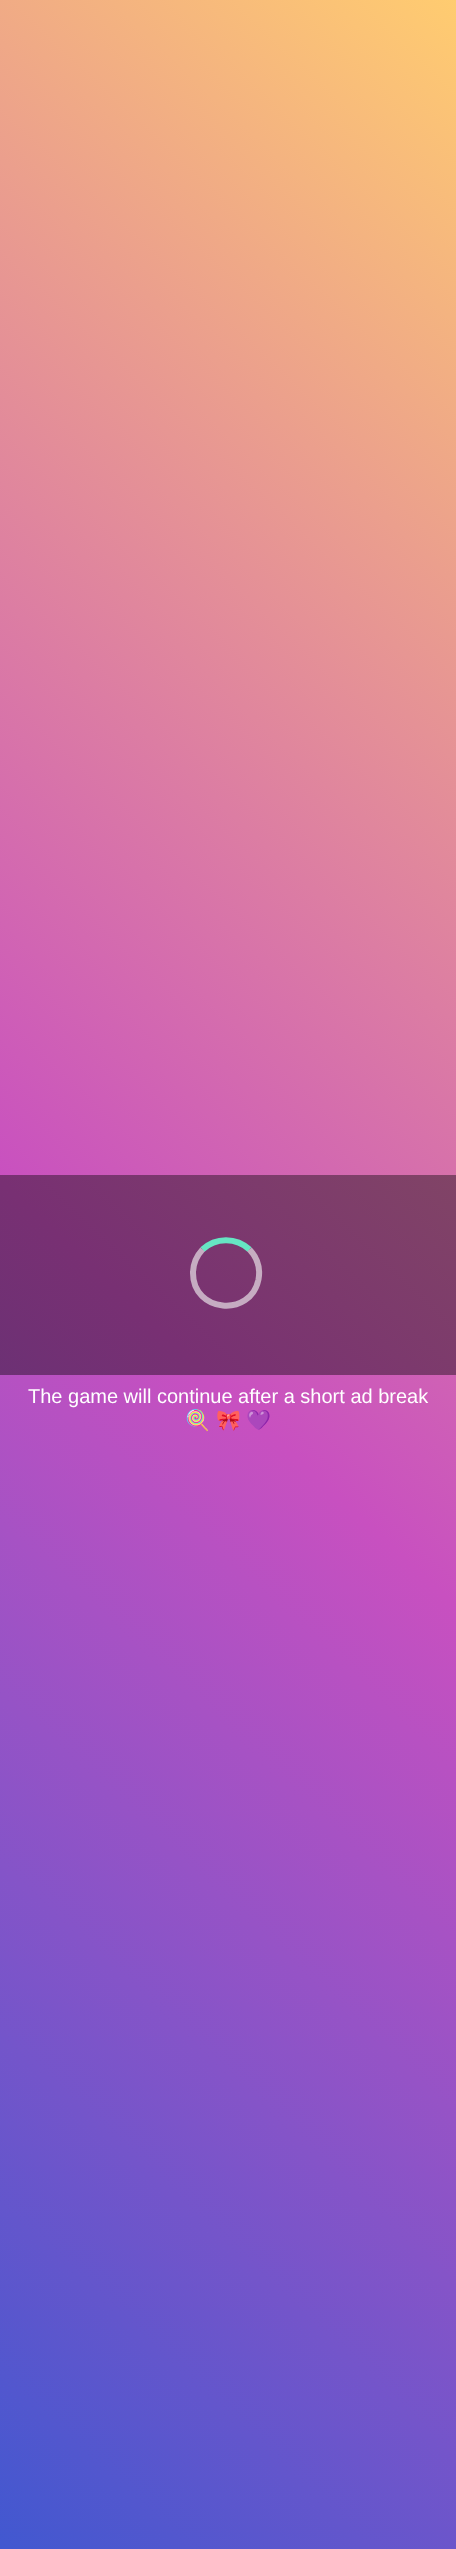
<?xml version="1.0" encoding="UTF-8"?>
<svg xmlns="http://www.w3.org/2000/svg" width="456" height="2549">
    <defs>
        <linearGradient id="g1" gradientUnits="userSpaceOnUse" x1="-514" y1="2070" x2="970" y2="479"><stop offset="0" stop-color="#4158D0"/><stop offset="0.46" stop-color="#C850C0"/><stop offset="1" stop-color="#FFCC70"/></linearGradient>
        <linearGradient id="g2" gradientUnits="userSpaceOnUse" x1="-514" y1="2070" x2="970" y2="479"><stop offset="0" stop-color="#27357D"/><stop offset="0.46" stop-color="#783073"/><stop offset="1" stop-color="#997A43"/></linearGradient>
    </defs>
    <rect width="100%" height="100%" fill="#FFFFFF"/>
    <rect x="0" y="0" width="456" height="2549" fill="url(#g1)"/>
    <rect x="0" y="1175" width="456" height="200" fill="url(#g2)"/>
    <path d="M 202.5 1249.5 C 215.5 1237 236.5 1237 249.5 1249.5" fill="none" stroke="#66E5C3" stroke-width="6"/>
    <path d="M 249.5 1249.5 C 257 1257.5 260.5 1268.5 258.5 1279.5 C 250.5 1318 193 1312.5 193 1273 C 193 1264.5 196.5 1256 202.5 1249.5" fill="none" stroke="#F3F3F3" stroke-opacity="0.63" stroke-width="6"/>
    <text x="28" y="1403" font-family="Liberation Sans" font-size="20" fill="#FFFFFF">The game will continue after a short ad break</text>
    <text x="185" y="1427" font-family="Noto Color Emoji" font-size="20" fill="#FFFFFF">🍭</text>
    <text x="216" y="1427" font-family="Noto Color Emoji" font-size="20" fill="#FFFFFF">🎀</text>
    <text x="246" y="1427" font-family="Noto Color Emoji" font-size="20" fill="#FFFFFF">💜</text>
</svg>
